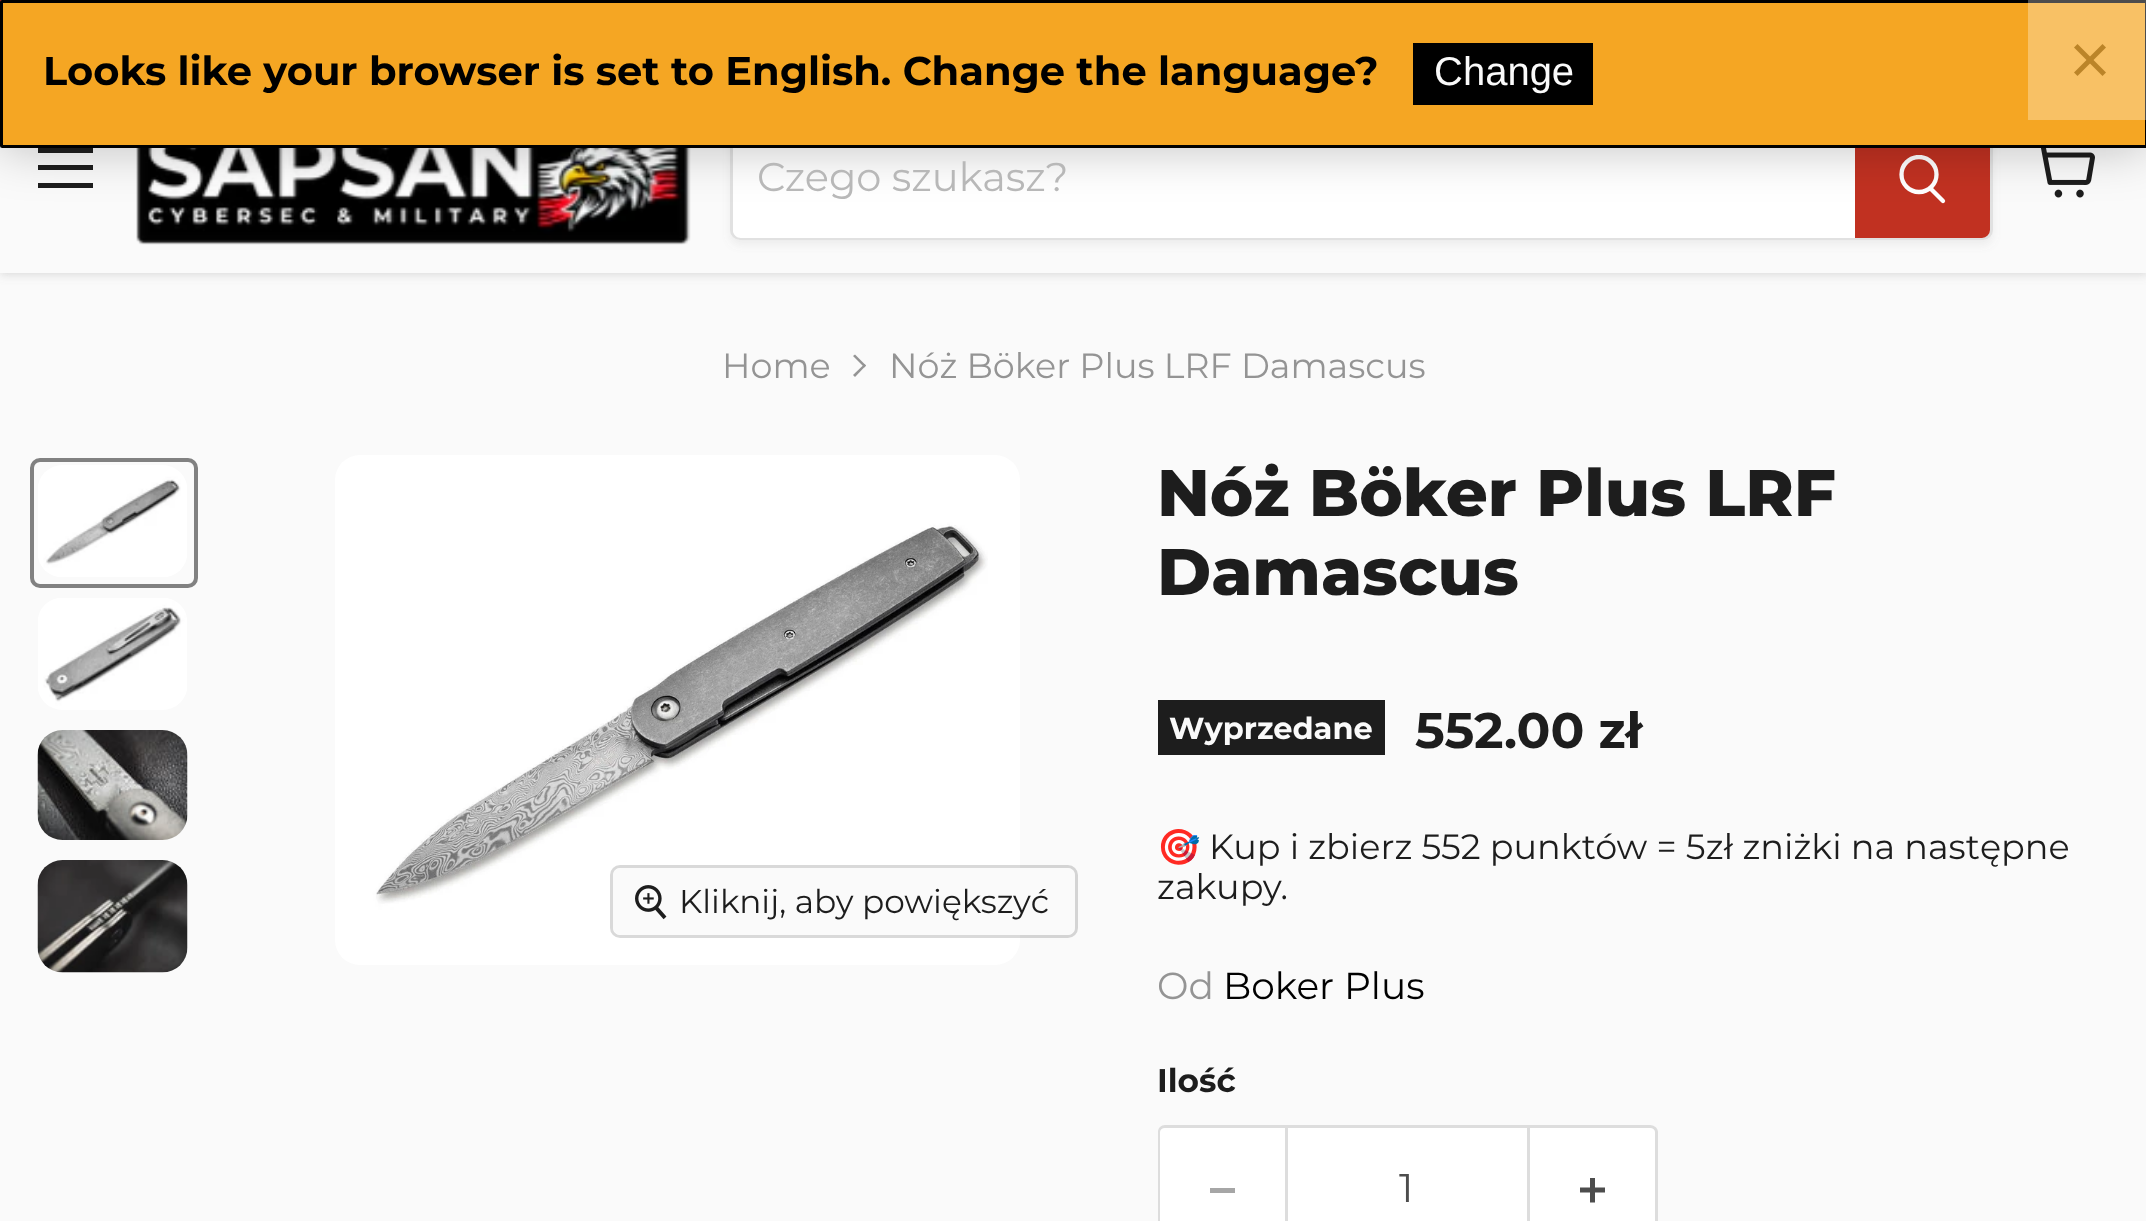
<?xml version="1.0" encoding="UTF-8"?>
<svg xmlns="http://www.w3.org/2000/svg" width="2146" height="1221">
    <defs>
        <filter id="blur1" x="-50%" y="-200%" width="200%" height="500%"><feGaussianBlur stdDeviation="5"/></filter>
        <clipPath id="clip1"><path d="M 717 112 H 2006 V 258 H 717 Z M 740 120 H 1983 C 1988.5 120 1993 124.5 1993 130 V 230 C 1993 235.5 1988.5 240 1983 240 H 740 C 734.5 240 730 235.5 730 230 V 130 C 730 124.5 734.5 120 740 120 Z" clip-rule="evenodd"/></clipPath>
        <filter id="blur2" x="-50%" y="-200%" width="200%" height="500%"><feGaussianBlur stdDeviation="4"/></filter>
        <clipPath id="clip2"><rect x="1898" y="155" width="50" height="53"/></clipPath>
        <filter id="blur3" x="-50%" y="-200%" width="200%" height="500%"><feGaussianBlur stdDeviation="25"/></filter>
    </defs>
    <rect width="100%" height="100%" fill="#FAFAFA"/>
    <rect x="0" y="0" width="2146" height="3" fill="#C13121"/>
    <rect x="0" y="88" width="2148" height="187" fill="#7D7D7D" fill-opacity="0.25" filter="url(#blur1)"/>
    <rect x="0" y="145" width="2146" height="128" fill="#FAFAFA"/>
    <rect x="38" y="148" width="55" height="5" fill="#1D1D1D"/>
    <rect x="38" y="165" width="55" height="5" fill="#1D1D1D"/>
    <rect x="38" y="183" width="55" height="5" fill="#1D1D1D"/>
    <image x="136" y="148" width="555" height="97" href="img_01.png"/>
    <g clip-path="url(#clip1)">
        <rect x="730" y="125" width="1263" height="120" rx="10" fill="#7D7D7D" fill-opacity="0.11" filter="url(#blur2)"/>
    </g>
    <rect x="731.5" y="121.5" width="1260" height="117" rx="8.5" fill="none" stroke="#7D7D7D" stroke-opacity="0.2" stroke-width="3"/>
    <path d="M 741 123 H 1855 V 238 H 741 C 736.5 238 733 234.5 733 230 V 131 C 733 126.5 736.5 123 741 123 Z" fill="#FFFFFF"/>
    <path d="M 1856.5 124.5 H 1982 C 1985.5 124.5 1988.5 127.5 1988.5 131 V 230 C 1988.5 233.5 1985.5 236.5 1982 236.5 H 1856.5 Z" fill="#C13121" stroke="#C13121" stroke-width="3"/>
    <path d="M 1943 201 L 1931 189" fill="none" stroke="#FFFFFF" stroke-width="4.3" stroke-linecap="round"/>
    <g clip-path="url(#clip2)">
        <circle cx="1919" cy="174.5" r="17.5" fill="none" stroke="#FFFFFF" stroke-width="4.3"/>
    </g>
    <image x="2041" y="148" width="54" height="50" href="img_02.png"/>
    <rect x="0" y="0" width="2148" height="148" rx="2.5" fill="#000000" fill-opacity="0.25" filter="url(#blur3)"/>
    <rect x="1.5" y="1.5" width="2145" height="145" rx="1" fill="#F5A623" stroke="#000000" stroke-width="3"/>
    <text x="43" y="85" font-family="Montserrat" font-size="40" font-weight="700" fill="#000000">Looks like your browser is set to English. Change the language?</text>
    <rect x="1413" y="43" width="180" height="62" fill="#000000"/>
    <text x="1434" y="85" font-family="Liberation Sans" font-size="40" fill="#FAFAFA">Change</text>
    <rect x="2028" y="0" width="118" height="120" fill="#FFFFFF" fill-opacity="0.3"/>
    <path d="M 2102.5 44 L 2106 47.5 L 2077.5 76 L 2074 72.5 Z" fill="#BB8428"/>
    <path d="M 2074 47.5 L 2077.5 44 L 2106 72.5 L 2102.5 76 Z" fill="#BB8428"/>
    <text x="757" y="191" font-family="Montserrat" font-size="40" font-weight="100" fill="#B8B8B8">Czego szukasz?</text>
    <text x="722" y="378" font-family="Montserrat" font-size="35" font-weight="100" fill="#949494">Home</text>
    <path d="M 855 354.5 L 866 365.5 L 864.5 367.5 L 853 356 Z" fill="#949494"/>
    <path d="M 864.5 364 L 866 365.5 L 855 377 L 853 375 Z" fill="#949494"/>
    <text x="889" y="378" font-family="Montserrat" font-size="35" font-weight="100" fill="#949494">Nóż Böker Plus LRF Damascus</text>
    <rect x="32" y="460" width="164" height="126" rx="8" fill="none" stroke="#818181" stroke-width="4"/>
    <image x="38" y="465" width="149" height="112" href="img_03.png"/>
    <image x="38" y="598" width="149" height="112" href="img_04.png"/>
    <image x="37" y="730" width="151" height="110" href="img_05.png"/>
    <image x="37" y="860" width="151" height="113" href="img_06.png"/>
    <image x="335" y="455" width="685" height="510" href="img_07.png"/>
    <rect x="611.5" y="866.5" width="465" height="70" rx="8.5" fill="none" stroke="#000000" stroke-opacity="0.15" stroke-width="3"/>
    <rect x="613" y="868" width="462" height="67" rx="8" fill="#FAFAFA" fill-opacity="0.9"/>
    <image x="635" y="885" width="32" height="35" href="img_08.png"/>
    <text x="679" y="913" font-family="Montserrat" font-size="32.75" font-weight="100" fill="#1D1D1D">Kliknij, aby powiększyć</text>
    <text font-family="Montserrat" font-size="65.6" font-weight="800" fill="#1D1D1D">
        <tspan x="1157" y="516">Nóż Böker Plus LRF</tspan>
        <tspan x="1157" y="595">Damascus</tspan>
    </text>
    <rect x="1158" y="700" width="227" height="55" fill="#1D1D1D"/>
    <text x="1169" y="739" font-family="Montserrat" font-size="30.5" font-weight="700" fill="#FAFAFA">Wyprzedane</text>
    <text x="1415" y="748" font-family="Montserrat" font-size="50" font-weight="700" fill="#1D1D1D">552.00 zł</text>
    <text x="1157" y="859" font-family="Noto Color Emoji" font-size="35" fill="#1D1D1D">🎯</text>
    <text x="1209" y="859" font-family="Montserrat" font-size="35" font-weight="100" fill="#1D1D1D">Kup i zbierz 552 punktów = 5zł zniżki na następne</text>
    <text x="1157" y="899" font-family="Montserrat" font-size="35" font-weight="100" fill="#1D1D1D">zakupy.</text>
    <text x="1157" y="999" font-family="Montserrat" font-size="37.5" font-weight="100" fill="#949494">Od</text>
    <text x="1223" y="999" font-family="Montserrat" font-size="37.5" font-weight="100" fill="#000000">Boker Plus</text>
    <text x="1157" y="1092" font-family="Montserrat" font-size="32.75" font-weight="700" fill="#1D1D1D">Ilość</text>
    <path d="M 1166 1125 H 1285 V 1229 H 1166 C 1161.5 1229 1158 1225.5 1158 1221 V 1133 C 1158 1128.5 1161.5 1125 1166 1125 Z" fill="#FFFFFF"/>
    <path d="M 1165 1125 H 1285 V 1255 H 1165 C 1161 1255 1158 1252 1158 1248 V 1132 C 1158 1128 1161 1125 1165 1125 Z M 1165 1128 H 1285 V 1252 H 1165 C 1162 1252 1160 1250 1160 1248 V 1132 C 1160 1130 1162 1128 1165 1128 Z" fill="#DDDDDD" fill-rule="evenodd"/>
    <rect x="1210" y="1188" width="25" height="5" fill="#A6A6A6"/>
    <rect x="1286.5" y="1126.5" width="242" height="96" fill="#FFFFFF" stroke="#DDDDDD" stroke-width="3"/>
    <text x="1399" y="1202" font-family="Montserrat" font-size="40" font-weight="100" fill="#4D4D4D">1</text>
    <path d="M 1530 1125 H 1650 C 1654.5 1125 1658 1128.5 1658 1133 V 1221 C 1658 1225.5 1654.5 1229 1650 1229 H 1530 Z" fill="#FFFFFF"/>
    <path d="M 1530 1125 H 1650 C 1654 1125 1658 1128 1658 1132 V 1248 C 1658 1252 1654 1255 1650 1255 H 1530 Z M 1530 1128 H 1650 C 1653 1128 1655 1130 1655 1132 V 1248 C 1655 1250 1653 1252 1650 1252 H 1530 Z" fill="#DDDDDD" fill-rule="evenodd"/>
    <image x="1580" y="1178" width="25" height="25" href="img_09.png"/>
</svg>
